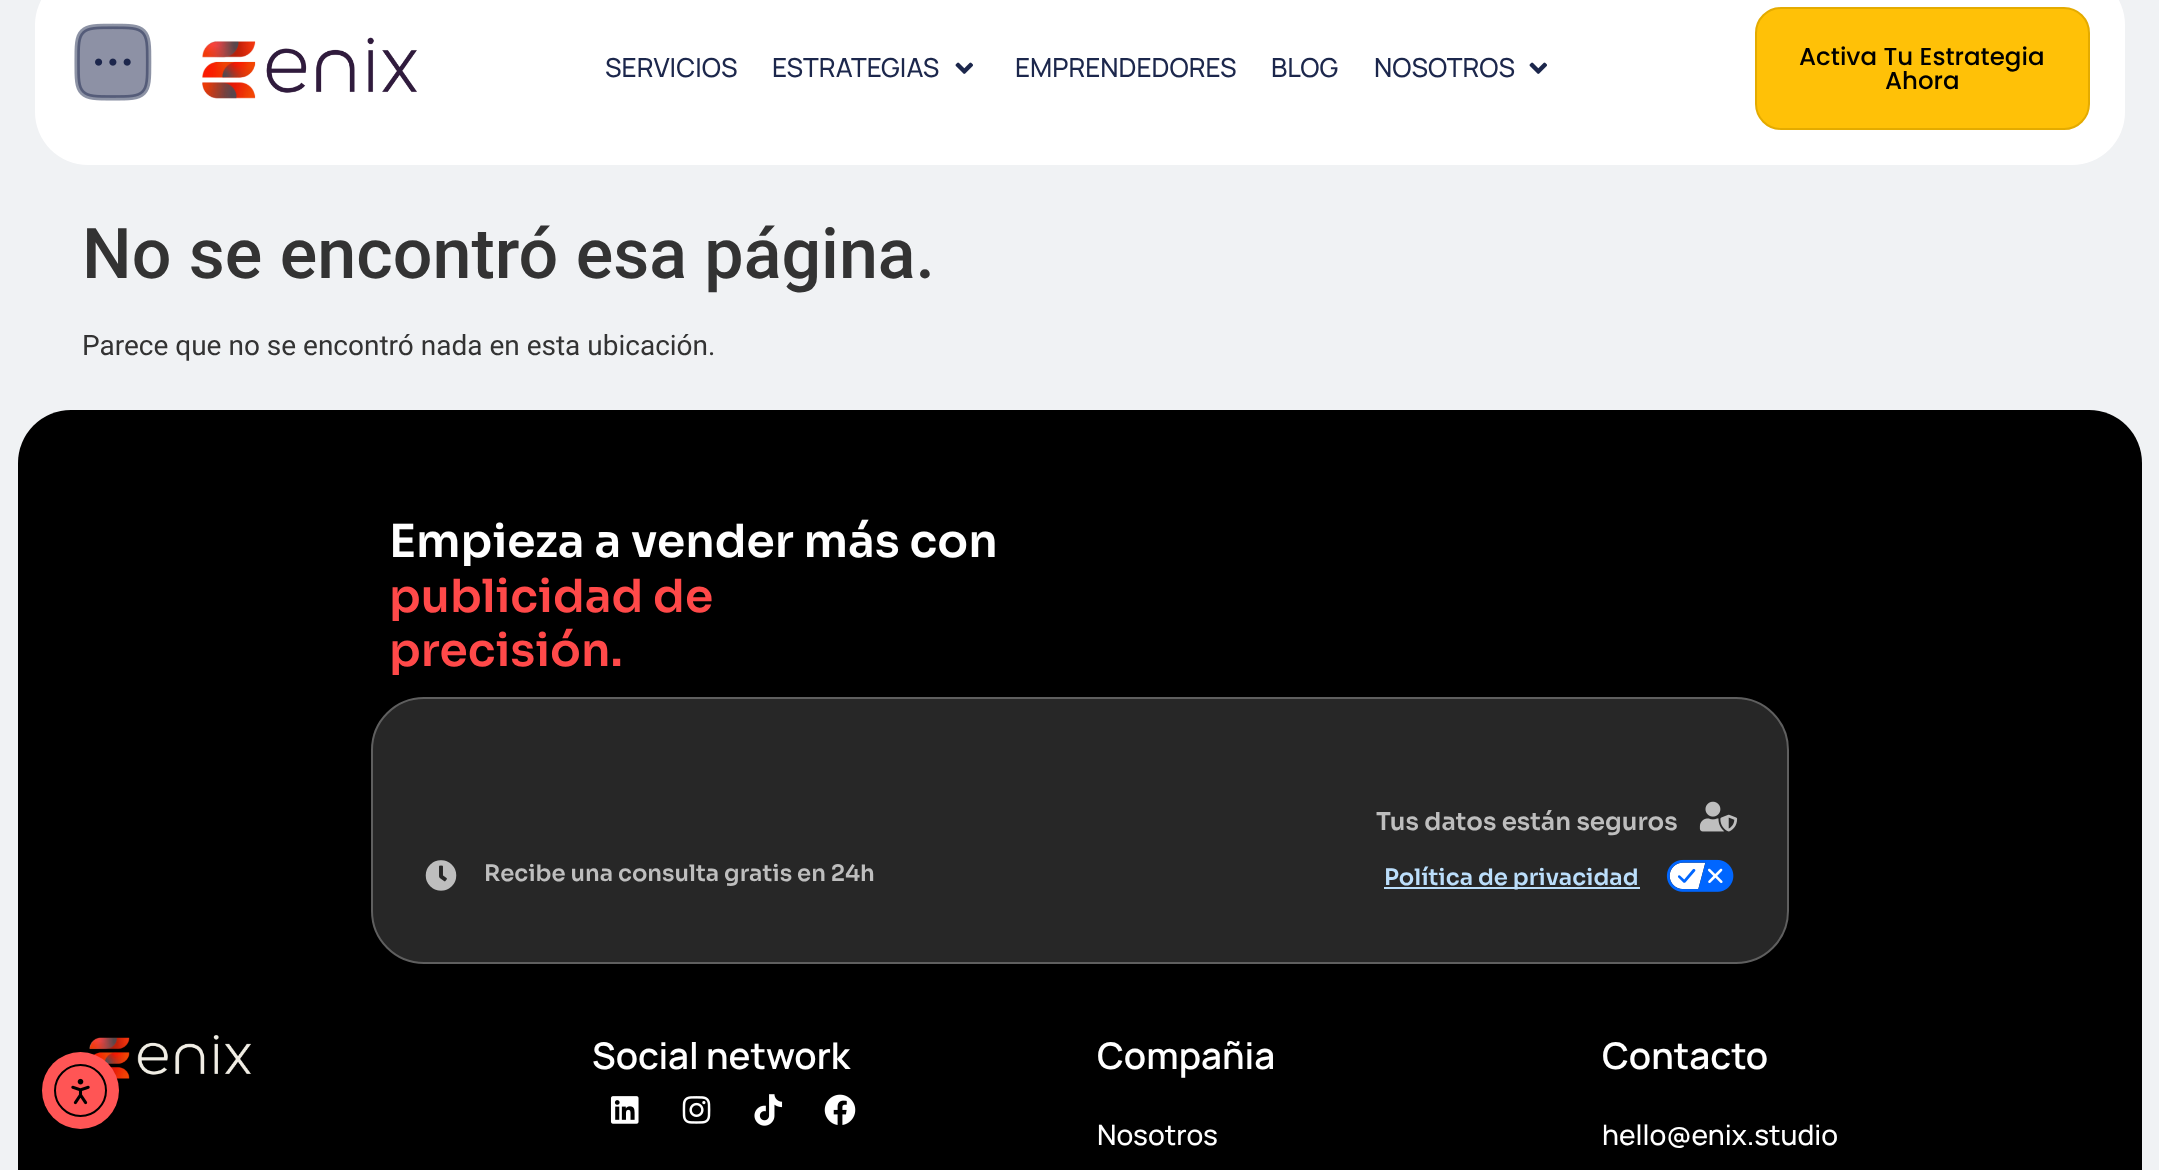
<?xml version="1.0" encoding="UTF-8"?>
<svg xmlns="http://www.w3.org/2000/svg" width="2159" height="1170">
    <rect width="100%" height="100%" fill="#F0F2F4"/>
    <rect x="35" y="-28" width="2090" height="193" rx="53" fill="#FFFFFF"/>
    <image x="74" y="23" width="78" height="78" href="img_01.png"/>
    <image x="202" y="37" width="215" height="62" href="img_02.png"/>
    <text x="605" y="77" font-family="Manrope" font-size="26.25" font-weight="500" fill="#1C274C">SERVICIOS</text>
    <text x="772" y="77" font-family="Manrope" font-size="26.25" font-weight="500" fill="#1C274C">ESTRATEGIAS</text>
    <image x="955" y="62" width="18" height="12" href="img_03.png"/>
    <text x="1015" y="77" font-family="Manrope" font-size="26.25" font-weight="500" fill="#1C274C">EMPRENDEDORES</text>
    <text x="1271" y="77" font-family="Manrope" font-size="26.25" font-weight="500" fill="#1C274C">BLOG</text>
    <text x="1374" y="77" font-family="Manrope" font-size="26.25" font-weight="500" fill="#1C274C">NOSOTROS</text>
    <image x="1529" y="62" width="18" height="12" href="img_03.png"/>
    <rect x="1756" y="8" width="333" height="121" rx="25" fill="#FFC107" stroke="#E4AB00" stroke-width="2"/>
    <text x="1799" y="65" font-family="Poppins" font-size="24.5" font-weight="500" fill="#000000">Activa Tu Estrategia</text>
    <text x="1885" y="89" font-family="Poppins" font-size="24.5" font-weight="500" fill="#000000">Ahora</text>
    <text x="82" y="278" font-family="Roboto" font-size="70" font-weight="500" fill="#333333">No se encontró esa página.</text>
    <text x="82" y="355" font-family="Roboto" font-size="28" fill="#333333">Parece que no se encontró nada en esta ubicación.</text>
    <rect x="18" y="410" width="2124" height="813" rx="53" fill="#000000"/>
    <image x="89" y="1035" width="163" height="44" href="img_08.png"/>
    <circle cx="80.5" cy="1090.5" r="38.5" fill="#FF5555"/>
    <circle cx="80.5" cy="1090.5" r="25.5" fill="none" stroke="#000000" stroke-width="2"/>
    <image x="71" y="1078" width="19" height="27" href="img_04.png"/>
    <text x="389" y="557" font-family="Sora" font-size="45.5" font-weight="600" fill="#FFFFFF">Empieza a vender más con</text>
    <text font-family="Sora" font-size="45.5" font-weight="600" fill="#FF4949">
        <tspan x="389" y="612">publicidad de</tspan>
        <tspan x="389" y="666">precisión.</tspan>
    </text>
    <rect x="372" y="698" width="1416" height="265" rx="52" fill="#272727" stroke="#5F5F5F" stroke-width="2"/>
    <text x="1376" y="830" font-family="Sora" font-size="24.5" font-weight="600" fill="#BEBEBE">Tus datos están seguros</text>
    <image x="1699" y="801" width="39" height="31" href="img_05.png"/>
    <image x="425" y="860" width="32" height="31" href="img_06.png"/>
    <text x="484" y="881" font-family="Sora" font-size="22.75" font-weight="600" fill="#BEBEBE">Recibe una consulta gratis en 24h</text>
    <rect x="1384" y="887" width="256" height="2" fill="#BBDEFB"/>
    <text x="1384" y="885" font-family="Sora" font-size="22.75" font-weight="600" fill="#BBDEFB">Política de privacidad</text>
    <image x="1666" y="859" width="68" height="33" href="img_07.png"/>
    <text x="592" y="1069" font-family="Manrope" font-size="36.75" font-weight="600" fill="#FFFFFF">Social network</text>
    <image x="610" y="1096" width="29" height="28" href="img_09.png"/>
    <image x="682" y="1096" width="29" height="28" href="img_10.png"/>
    <image x="754" y="1094" width="29" height="32" href="img_11.png"/>
    <image x="824" y="1094" width="32" height="31" href="img_12.png"/>
    <text x="1097" y="1069" font-family="Manrope" font-size="36.75" font-weight="600" fill="#FFFFFF">Compañia</text>
    <text x="1097" y="1145" font-family="Manrope" font-size="28" font-weight="500" fill="#FFFFFF">Nosotros</text>
    <text x="1602" y="1069" font-family="Manrope" font-size="36.75" font-weight="600" fill="#FFFFFF">Contacto</text>
    <text x="1602" y="1145" font-family="Manrope" font-size="28" font-weight="500" fill="#FFFFFF">hello@enix.studio</text>
</svg>
